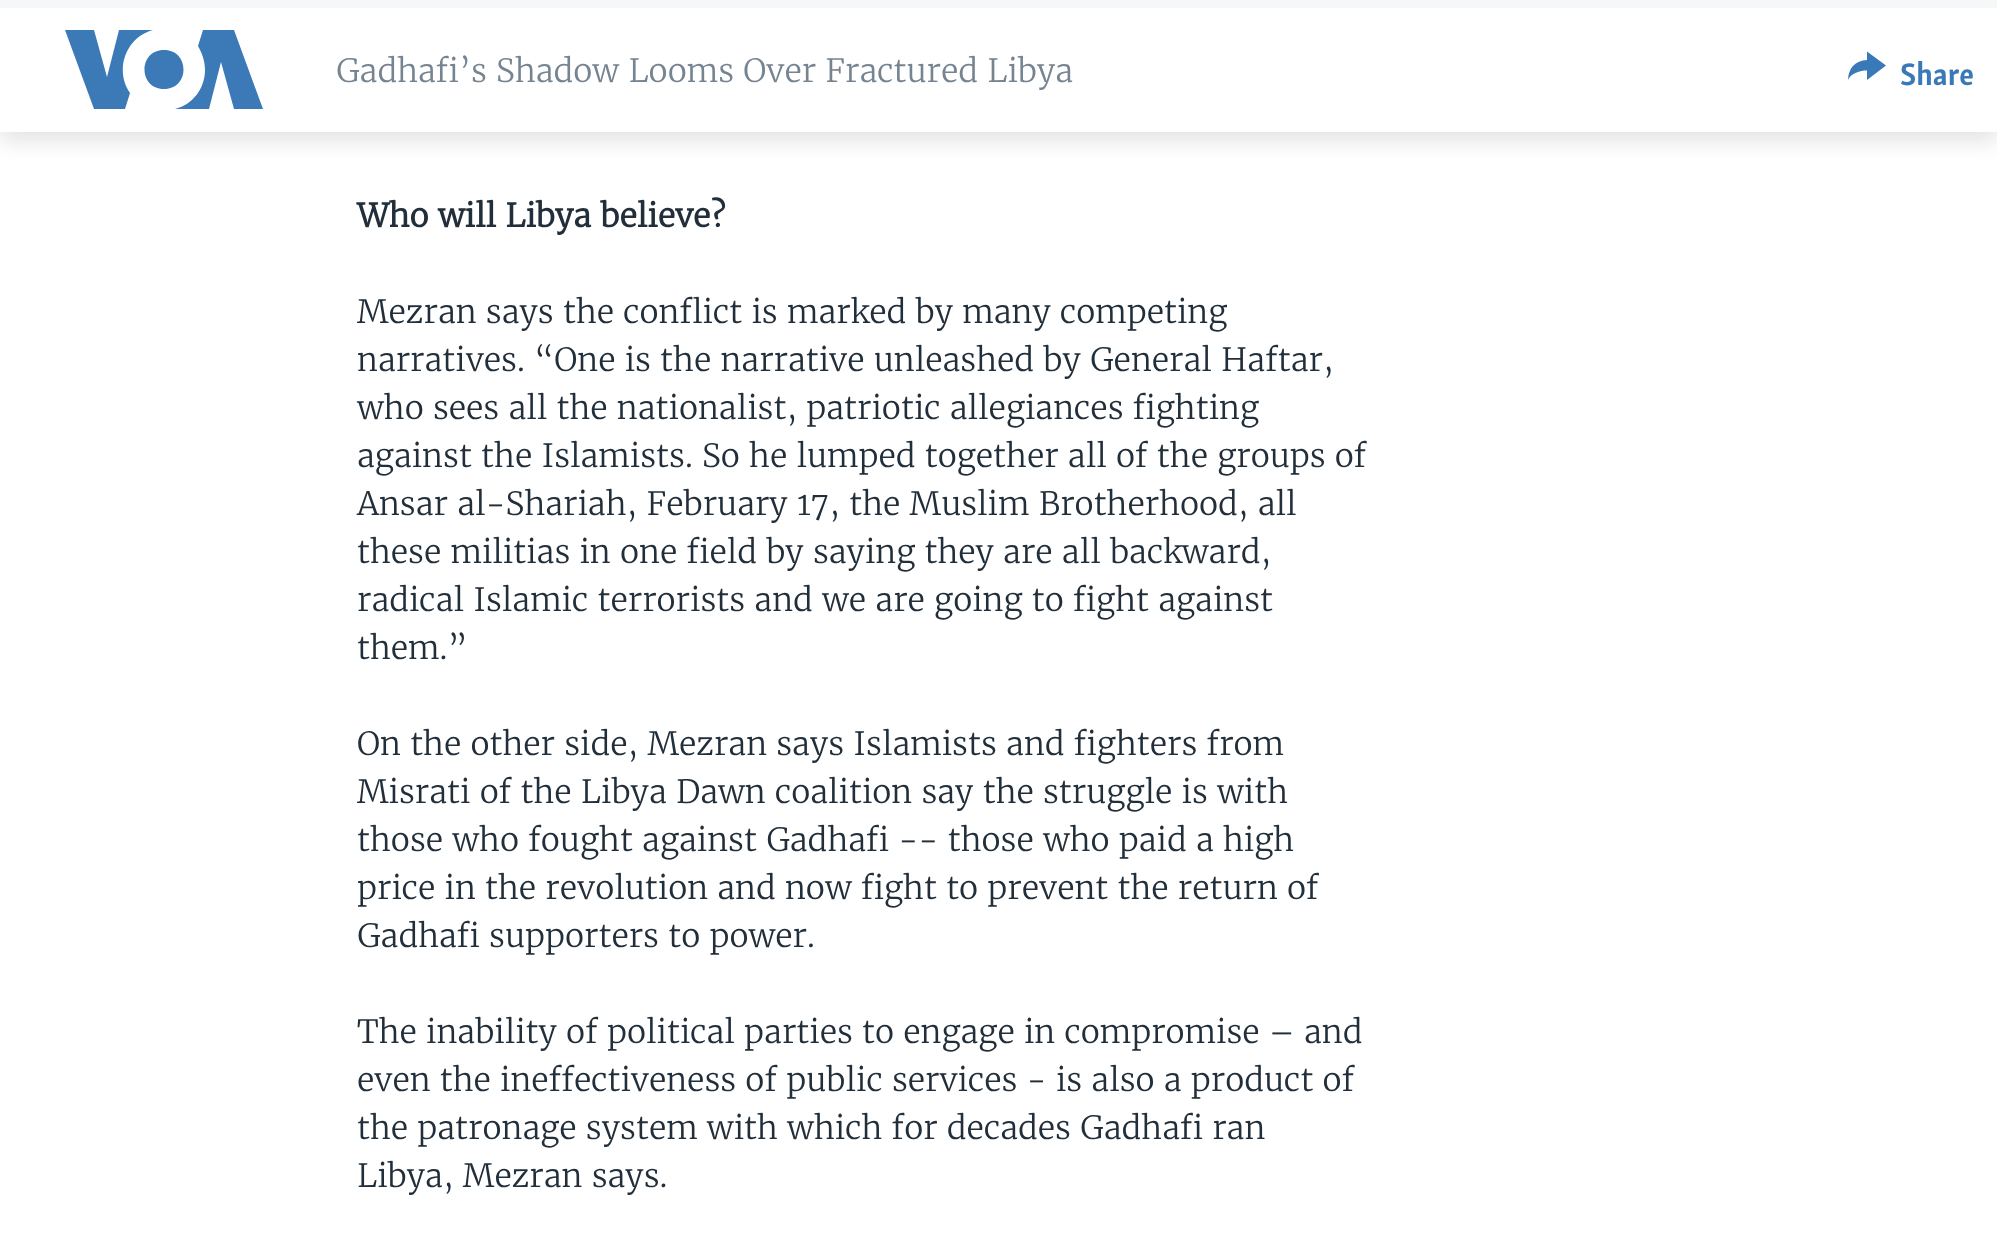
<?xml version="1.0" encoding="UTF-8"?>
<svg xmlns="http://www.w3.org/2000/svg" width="1997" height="1252">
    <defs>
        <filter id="blur1" x="-50%" y="-200%" width="200%" height="500%"><feGaussianBlur stdDeviation="10"/></filter>
    </defs>
    <rect width="100%" height="100%" fill="#FFFFFF"/>
    <rect x="0" y="10" width="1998" height="132" fill="#000000" fill-opacity="0.1" filter="url(#blur1)"/>
    <rect x="0" y="8" width="1997" height="124" fill="#FFFFFF"/>
    <rect x="0" y="0" width="1997" height="8" fill="#F6F7F8"/>
    <path d="M 130 93 L 125 109 H 94 L 65 30 H 94 L 107 77 L 119 30 H 153 C 126 37 114 70 130 93 Z M 164 50 C 138 50 138 89 164 89 C 190 89 190 50 164 50 Z M 205 70 C 205 89 192 105 175 109 H 209 L 221 62 L 234 109 H 263 L 234 30 H 203 L 198 46 C 202 53 205 61 205 70 Z" fill="#3B79B7"/>
    <text x="336" y="82" font-family="Merriweather" font-size="32" font-weight="300" fill="#768492">Gadhafi’s Shadow Looms Over Fractured Libya</text>
    <path d="M 1848 80 C 1848.5 68 1855 60.5 1867 60 V 51.5 L 1886 65.5 L 1867 80 V 70.5 C 1860 70.5 1851 73 1848 80 Z" fill="#3A79B7"/>
    <text x="1900" y="85" font-family="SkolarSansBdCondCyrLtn" font-size="32" font-weight="700" fill="#3A79B7">Share</text>
    <text x="357" y="227" font-family="Merriweather" font-size="32" font-weight="700" fill="#222F3A">Who will Libya believe?</text>
    <text font-family="Merriweather" font-size="32" font-weight="300" fill="#222F3A">
        <tspan x="357" y="323">Mezran says the conflict is marked by many competing</tspan>
        <tspan x="357" y="371">narratives. “One is the narrative unleashed by General Haftar,</tspan>
        <tspan x="357" y="419">who sees all the nationalist, patriotic allegiances fighting</tspan>
        <tspan x="357" y="467">against the Islamists. So he lumped together all of the groups of</tspan>
        <tspan x="357" y="515">Ansar al-Shariah, February 17, the Muslim Brotherhood, all</tspan>
        <tspan x="357" y="563">these militias in one field by saying they are all backward,</tspan>
        <tspan x="357" y="611">radical Islamic terrorists and we are going to fight against</tspan>
        <tspan x="357" y="659">them.”</tspan>
    </text>
    <text font-family="Merriweather" font-size="32" font-weight="300" fill="#222F3A">
        <tspan x="357" y="755">On the other side, Mezran says Islamists and fighters from</tspan>
        <tspan x="357" y="803">Misrati of the Libya Dawn coalition say the struggle is with</tspan>
        <tspan x="357" y="851">those who fought against Gadhafi -- those who paid a high</tspan>
        <tspan x="357" y="899">price in the revolution and now fight to prevent the return of</tspan>
        <tspan x="357" y="947">Gadhafi supporters to power.</tspan>
    </text>
    <text font-family="Merriweather" font-size="32" font-weight="300" fill="#222F3A">
        <tspan x="357" y="1043">The inability of political parties to engage in compromise – and</tspan>
        <tspan x="357" y="1091">even the ineffectiveness of public services - is also a product of</tspan>
        <tspan x="357" y="1139">the patronage system with which for decades Gadhafi ran</tspan>
        <tspan x="357" y="1187">Libya, Mezran says.</tspan>
    </text>
</svg>
